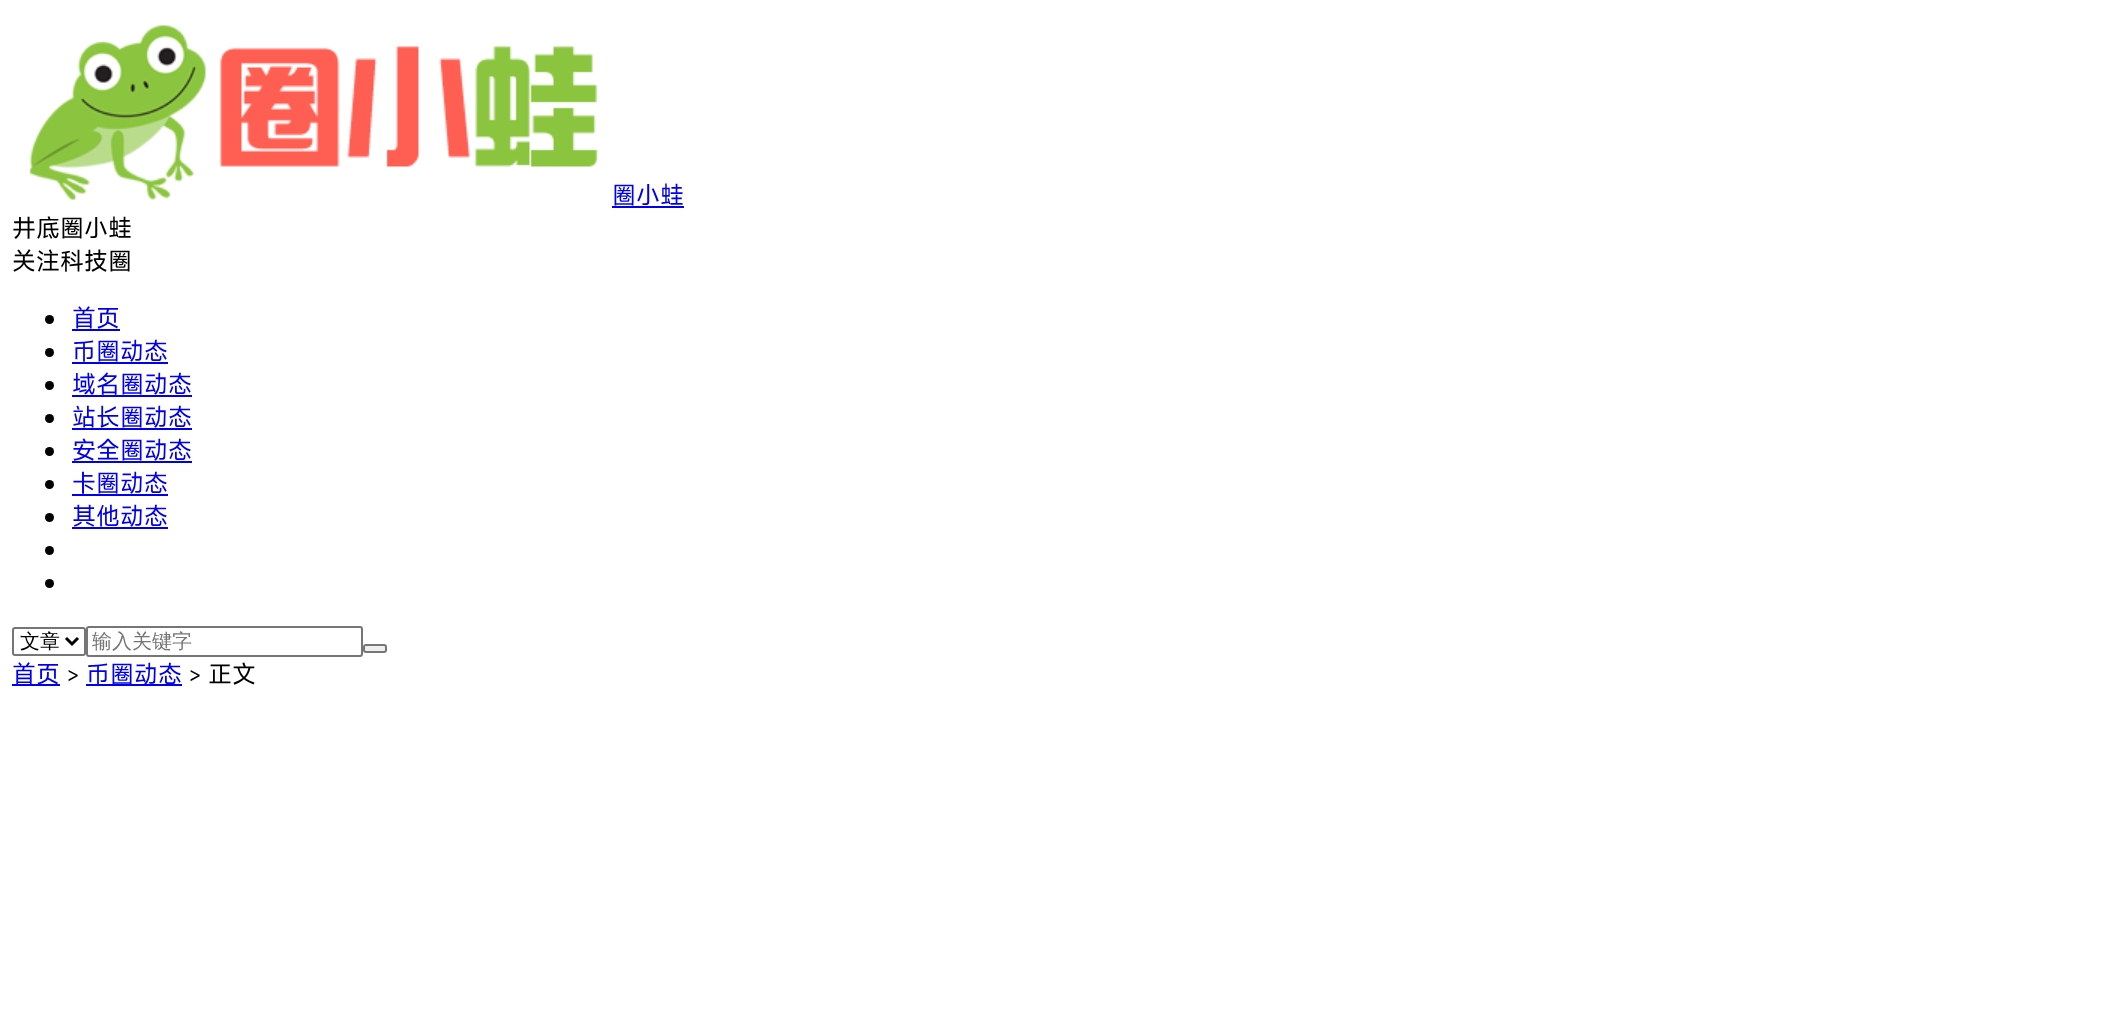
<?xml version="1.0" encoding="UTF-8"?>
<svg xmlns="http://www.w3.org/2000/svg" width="2118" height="1031">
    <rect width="100%" height="100%" fill="#FFFFFF"/>
    <image x="29" y="25" width="569" height="175" href="img_01.png"/>
    <text x="612" y="204" font-family="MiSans" font-size="24" fill="#0000EE">圈小蛙</text>
    <rect x="612" y="206" width="72" height="2" fill="#0000EE"/>
    <text font-family="MiSans" font-size="24" fill="#000000">
        <tspan x="12" y="237">井底圈小蛙</tspan>
        <tspan x="12" y="270">关注科技圈</tspan>
    </text>
    <circle cx="49.5" cy="319.5" r="4.5" fill="#000000"/>
    <text x="72" y="327" font-family="MiSans" font-size="24" fill="#0000EE">首页</text>
    <rect x="72" y="329" width="48" height="2" fill="#0000EE"/>
    <circle cx="49.5" cy="352.5" r="4.5" fill="#000000"/>
    <text x="72" y="360" font-family="MiSans" font-size="24" fill="#0000EE">币圈动态</text>
    <rect x="72" y="362" width="96" height="2" fill="#0000EE"/>
    <circle cx="49.5" cy="385.5" r="4.5" fill="#000000"/>
    <text x="72" y="393" font-family="MiSans" font-size="24" fill="#0000EE">域名圈动态</text>
    <rect x="72" y="395" width="120" height="2" fill="#0000EE"/>
    <circle cx="49.5" cy="418.5" r="4.5" fill="#000000"/>
    <text x="72" y="426" font-family="MiSans" font-size="24" fill="#0000EE">站长圈动态</text>
    <rect x="72" y="428" width="120" height="2" fill="#0000EE"/>
    <circle cx="49.5" cy="451.5" r="4.5" fill="#000000"/>
    <text x="72" y="459" font-family="MiSans" font-size="24" fill="#0000EE">安全圈动态</text>
    <rect x="72" y="461" width="120" height="2" fill="#0000EE"/>
    <circle cx="49.5" cy="484.5" r="4.5" fill="#000000"/>
    <text x="72" y="492" font-family="MiSans" font-size="24" fill="#0000EE">卡圈动态</text>
    <rect x="72" y="494" width="96" height="2" fill="#0000EE"/>
    <circle cx="49.5" cy="517.5" r="4.5" fill="#000000"/>
    <text x="72" y="525" font-family="MiSans" font-size="24" fill="#0000EE">其他动态</text>
    <rect x="72" y="527" width="96" height="2" fill="#0000EE"/>
    <circle cx="49.5" cy="550.5" r="4.5" fill="#000000"/>
    <circle cx="49.5" cy="583.5" r="4.5" fill="#000000"/>
    <rect x="13" y="628" width="72" height="27" rx="2" fill="none" stroke="#767676" stroke-width="2"/>
    <path d="M 66 638 L 72 644 L 78 638" fill="none" stroke="#000000" stroke-width="3"/>
    <text x="20" y="648" font-family="WenQuanYi Zen Hei" font-size="20" font-weight="500" fill="#000000">文章</text>
    <rect x="87" y="627" width="275" height="29" rx="2" fill="none" stroke="#767676" stroke-width="2"/>
    <text x="92" y="648" font-family="WenQuanYi Zen Hei" font-size="20" font-weight="500" fill="#757575">输入关键字</text>
    <rect x="364" y="645" width="22" height="7" rx="2" fill="#EFEFEF" stroke="#767676" stroke-width="2"/>
    <rect x="12" y="684" width="48" height="2" fill="#0000EE"/>
    <text x="12" y="683" font-family="MiSans" font-size="24" fill="#0000EE">首页</text>
    <text x="67" y="683" font-family="MiSans" font-size="20" fill="#000000">&gt;</text>
    <rect x="86" y="684" width="96" height="2" fill="#0000EE"/>
    <text x="86" y="683" font-family="MiSans" font-size="24" fill="#0000EE">币圈动态</text>
    <text x="189" y="683" font-family="MiSans" font-size="20" fill="#000000">&gt;</text>
    <text x="208" y="683" font-family="MiSans" font-size="24" fill="#000000">正文</text>
</svg>
